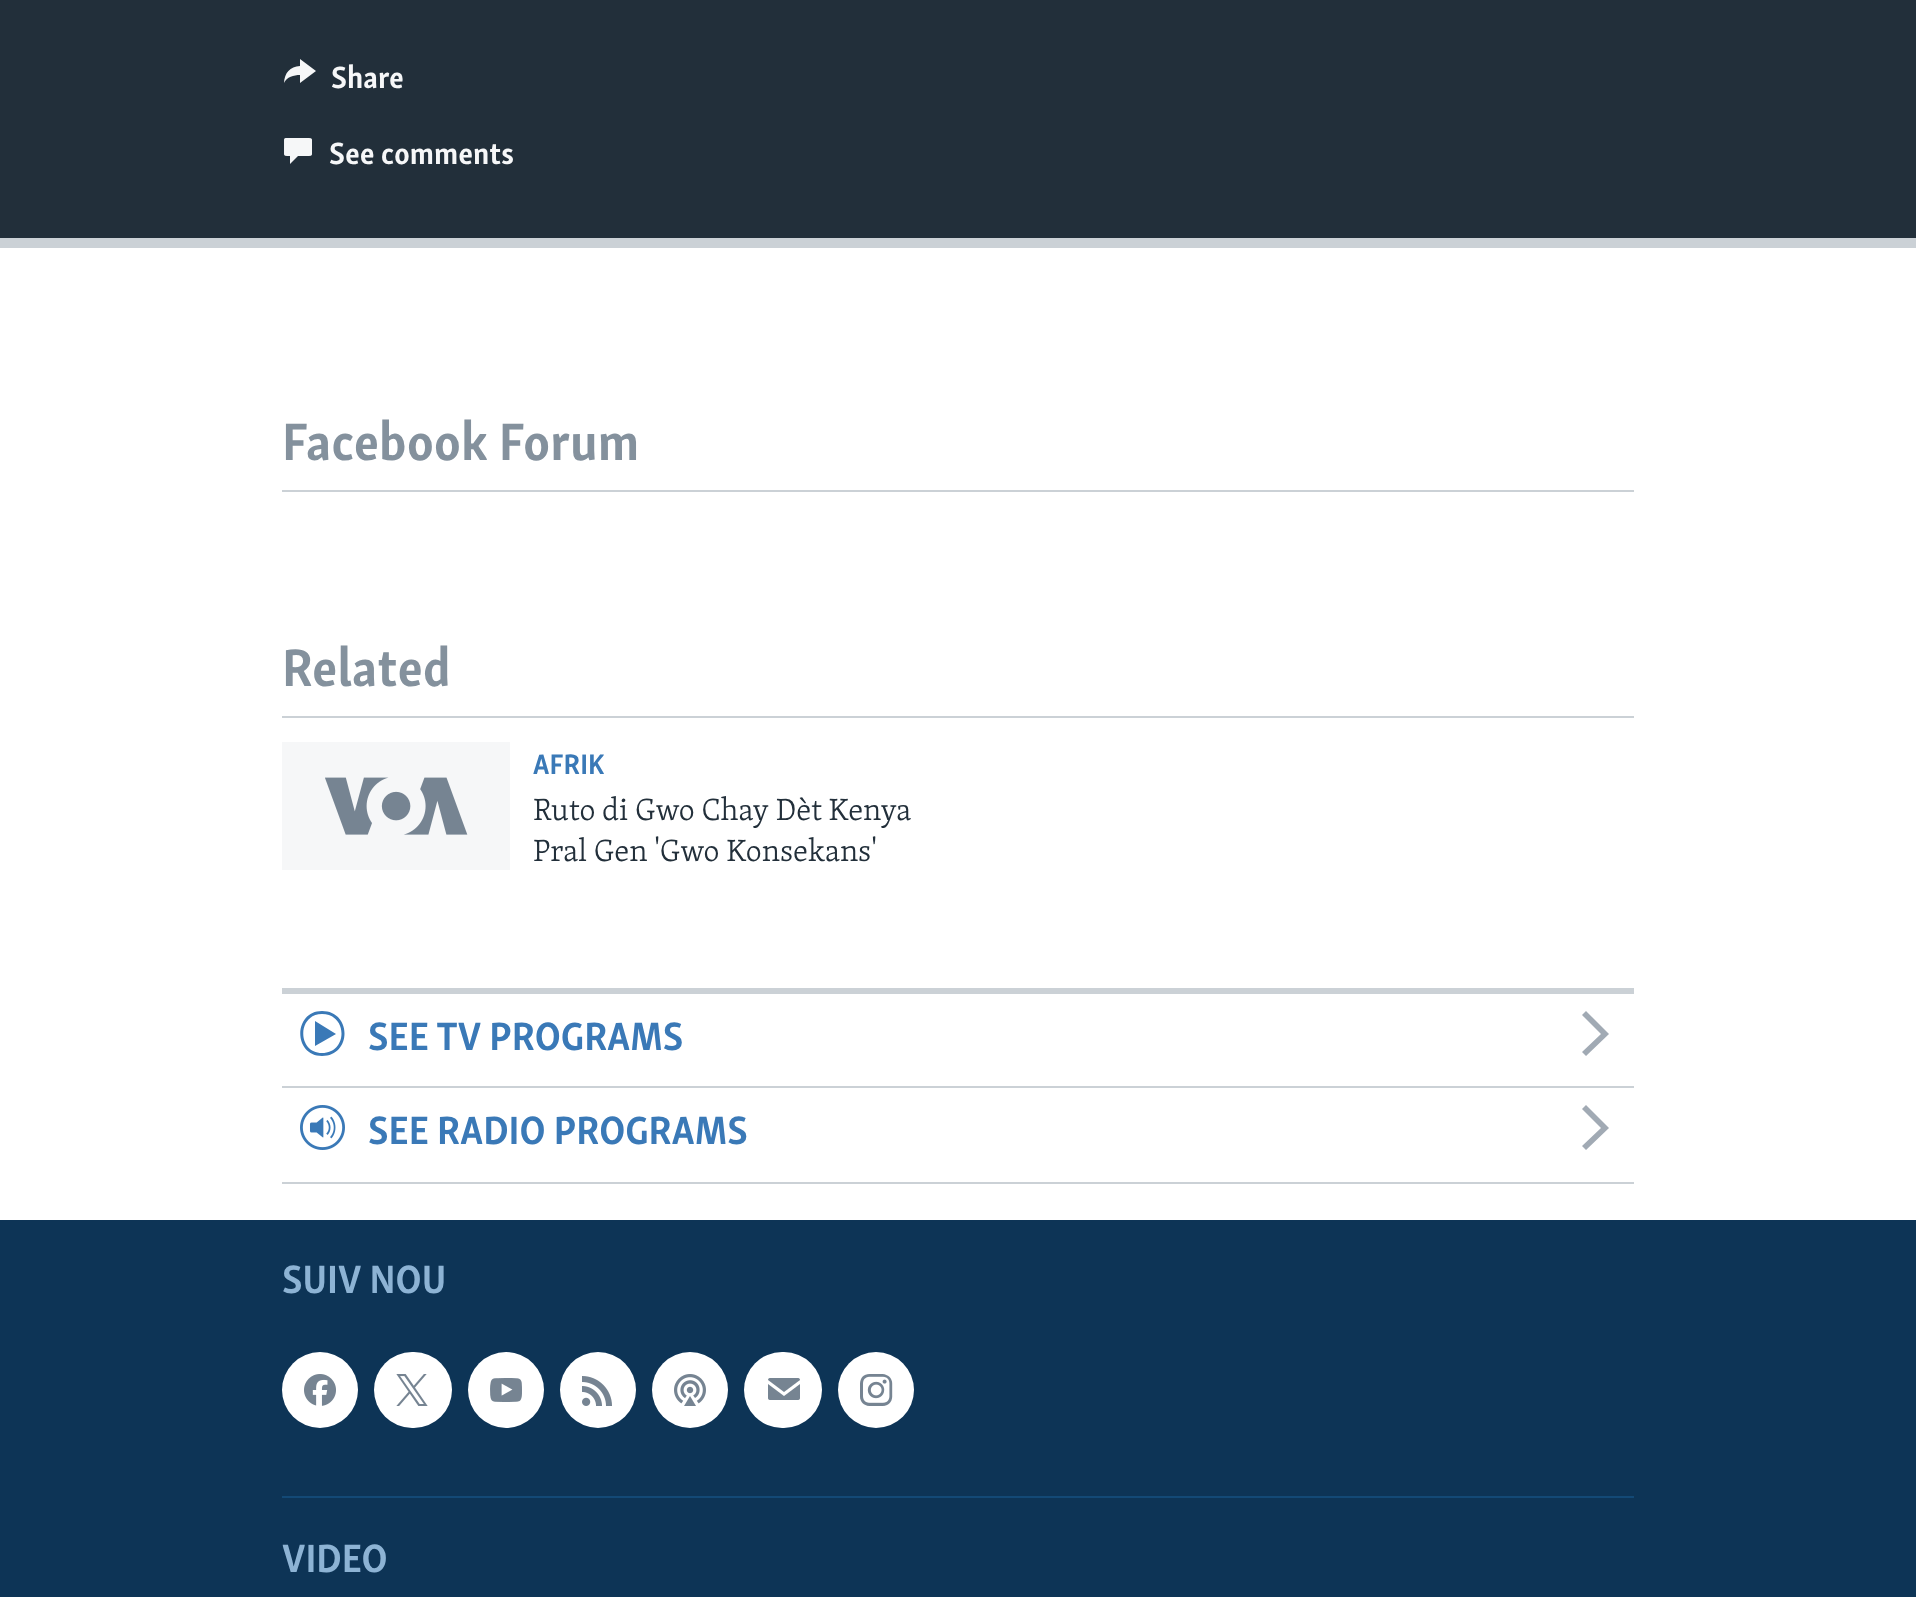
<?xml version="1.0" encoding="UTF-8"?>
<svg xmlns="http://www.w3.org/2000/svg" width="1916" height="1597">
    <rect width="100%" height="100%" fill="#FFFFFF"/>
    <rect x="0" y="0" width="1916" height="238" fill="#222F3A"/>
    <rect x="0" y="238" width="1916" height="10" fill="#CBD1D6"/>
    <path d="M 284 83 C 284.5 73 290 66.5 300 66 V 59 L 316 71 L 300 83 V 75 C 294 75 286.5 77 284 83 Z" fill="#F6F7F8"/>
    <text x="331" y="88" font-family="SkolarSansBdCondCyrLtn" font-size="31.5" font-weight="700" fill="#F6F7F8">Share</text>
    <image x="284" y="138" width="28" height="26" href="img_01.png"/>
    <text x="329" y="164" font-family="SkolarSansBdCondCyrLtn" font-size="31.5" font-weight="700" fill="#F6F7F8">See comments</text>
    <rect x="282" y="490" width="1352" height="2" fill="#CBD1D6"/>
    <text x="282" y="460" font-family="SkolarSansBdCondCyrLtn" font-size="54" font-weight="700" fill="#84919D">Facebook Forum</text>
    <rect x="282" y="716" width="1352" height="2" fill="#CBD1D6"/>
    <text x="282" y="686" font-family="SkolarSansBdCondCyrLtn" font-size="54" font-weight="700" fill="#84919D">Related</text>
    <rect x="282" y="742" width="228" height="128" fill="#F6F7F8"/>
    <image x="325" y="777" width="143" height="58" href="img_02.png"/>
    <text x="533" y="774" font-family="SkolarSansBdCondCyrLtn" font-size="29" font-weight="700" fill="#3A79B7">AFRIK</text>
    <text font-family="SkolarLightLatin" font-size="31.5" font-weight="300" fill="#222F3A">
        <tspan x="533" y="820">Ruto di Gwo Chay Dèt Kenya</tspan>
        <tspan x="533" y="861">Pral Gen 'Gwo Konsekans'</tspan>
    </text>
    <rect x="282" y="988" width="1352" height="6" fill="#CBD1D6"/>
    <rect x="282" y="1086" width="1352" height="2" fill="#CBD1D6"/>
    <path d="M 315 1046 L 336 1034 L 315 1021 Z M 322 1014 C 348 1014 348 1053 322 1053 C 297 1053 297 1014 322 1014 Z M 322 1011 C 293 1011 293 1056 322 1056 C 352 1056 352 1011 322 1011 Z" fill="#3A79B7"/>
    <text x="368" y="1050" font-family="SkolarSansBdCondCyrLtn" font-size="40.5" font-weight="700" fill="#3A79B7">SEE TV PROGRAMS</text>
    <path d="M 1586 1056 L 1609 1034 L 1586 1011 L 1582 1015 L 1601 1034 L 1582 1052 Z" fill="#A1AAB4"/>
    <rect x="282" y="1182" width="1352" height="2" fill="#CBD1D6"/>
    <image x="300" y="1105" width="45" height="45" href="img_03.png"/>
    <text x="368" y="1144" font-family="SkolarSansBdCondCyrLtn" font-size="40.5" font-weight="700" fill="#3A79B7">SEE RADIO PROGRAMS</text>
    <path d="M 1586 1150 L 1609 1128 L 1586 1105 L 1582 1109 L 1601 1128 L 1582 1146 Z" fill="#A1AAB4"/>
    <rect x="0" y="1220" width="1916" height="377" fill="#0D3456"/>
    <text x="282" y="1293" font-family="SkolarSansBdCondCyrLtn" font-size="40.5" font-weight="700" fill="#8DB3D4">SUIV NOU</text>
    <circle cx="320" cy="1390" r="38" fill="#FFFFFF"/>
    <image x="304" y="1374" width="32" height="32" href="img_04.png"/>
    <rect x="374" y="1352" width="78" height="76" rx="38" fill="#FFFFFF"/>
    <image x="396" y="1374" width="32" height="32" href="img_05.png"/>
    <circle cx="506" cy="1390" r="38" fill="#FFFFFF"/>
    <image x="490" y="1378" width="32" height="24" href="img_06.png"/>
    <circle cx="598" cy="1390" r="38" fill="#FFFFFF"/>
    <image x="582" y="1376" width="30" height="30" href="img_07.png"/>
    <circle cx="690" cy="1390" r="38" fill="#FFFFFF"/>
    <image x="674" y="1374" width="32" height="32" href="img_08.png"/>
    <rect x="744" y="1352" width="78" height="76" rx="38" fill="#FFFFFF"/>
    <image x="768" y="1378" width="32" height="22" href="img_09.png"/>
    <circle cx="876" cy="1390" r="38" fill="#FFFFFF"/>
    <image x="860" y="1374" width="33" height="32" href="img_10.png"/>
    <rect x="282" y="1496" width="1352" height="2" fill="#134976"/>
    <text x="282" y="1572" font-family="SkolarSansBdCondCyrLtn" font-size="40.5" font-weight="700" fill="#8DB3D4">VIDEO</text>
</svg>
